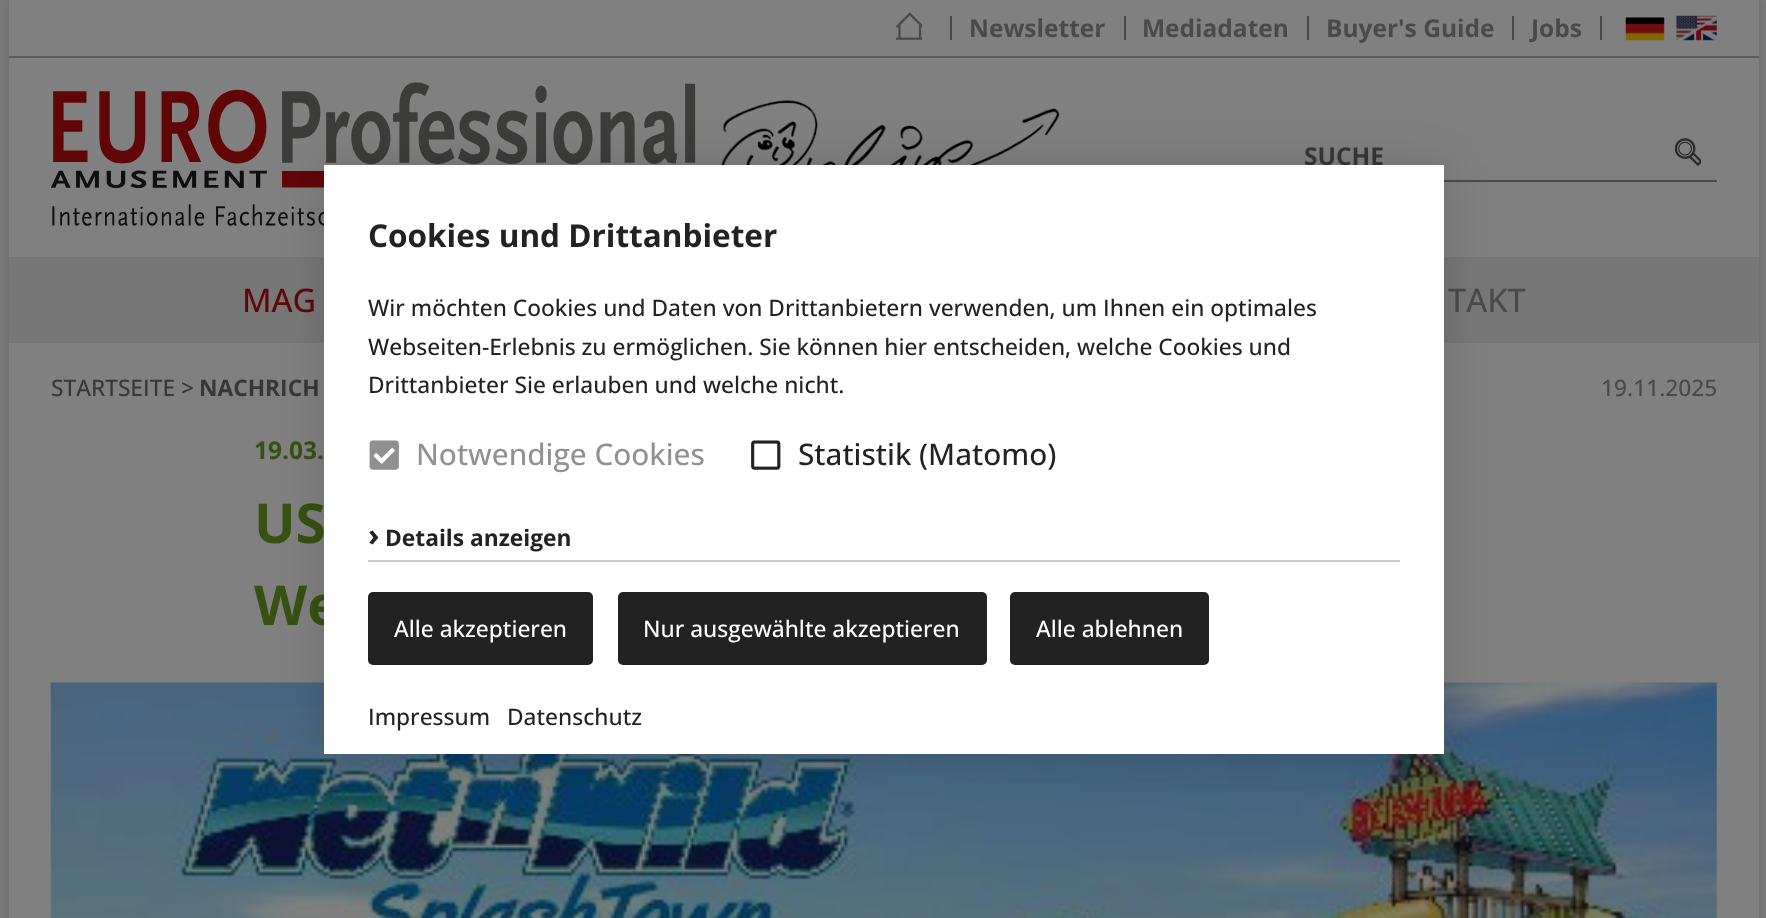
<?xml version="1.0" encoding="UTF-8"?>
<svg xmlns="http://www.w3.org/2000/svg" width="1766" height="918">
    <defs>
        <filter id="blur1" x="-50%" y="-200%" width="200%" height="500%"><feGaussianBlur stdDeviation="5"/></filter>
        <filter id="blur2" x="-50%" y="-200%" width="200%" height="500%"><feGaussianBlur stdDeviation="22"/></filter>
    </defs>
    <rect width="100%" height="100%" fill="#787878"/>
    <rect x="9" y="0" width="1750" height="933" fill="#000000" fill-opacity="0.1" filter="url(#blur1)"/>
    <rect x="9" y="0" width="1750" height="918" fill="#808080"/>
    <rect x="9" y="56" width="1750" height="2" fill="#5C5C5C"/>
    <image x="896" y="12" width="26" height="28" href="img_01.png"/>
    <rect x="950" y="16" width="2" height="24" fill="#4A4A4A"/>
    <text x="969" y="37" font-family="Open Sans" font-size="24.5" font-weight="700" fill="#4A4A4A">Newsletter</text>
    <rect x="1124" y="16" width="2" height="24" fill="#4A4A4A"/>
    <text x="1142" y="37" font-family="Open Sans" font-size="24.5" font-weight="700" fill="#4A4A4A">Mediadaten</text>
    <rect x="1307" y="16" width="2" height="24" fill="#4A4A4A"/>
    <text x="1326" y="37" font-family="Open Sans" font-size="24.5" font-weight="700" fill="#4A4A4A">Buyer's Guide</text>
    <rect x="1512" y="16" width="2" height="24" fill="#4A4A4A"/>
    <text x="1531" y="37" font-family="Open Sans" font-size="24.5" font-weight="700" fill="#4A4A4A">Jobs</text>
    <rect x="1600" y="16" width="2" height="24" fill="#4A4A4A"/>
    <image x="1625" y="17" width="40" height="24" href="img_02.png"/>
    <image x="1676" y="15" width="41" height="26" href="img_03.png"/>
    <image x="51" y="82" width="1009" height="144" href="img_04.png"/>
    <rect x="1444" y="180" width="273" height="2" fill="#4A4A4A"/>
    <text x="1304" y="165" font-family="Open Sans" font-size="24.5" font-weight="700" fill="#373736">SUCHE</text>
    <image x="1675" y="138" width="26" height="28" href="img_05.png"/>
    <rect x="9" y="257" width="1750" height="86" fill="#777777"/>
    <text x="242" y="312" font-family="Open Sans" font-size="32.5" font-weight="500" fill="#5F0609">MAG</text>
    <text x="1448" y="312" font-family="Open Sans" font-size="32.5" font-weight="500" fill="#4A4A4A">TAKT</text>
    <text x="51" y="396" font-family="Open Sans" font-size="22.75" font-weight="500" fill="#373736">STARTSEITE &gt;</text>
    <text x="199" y="396" font-family="Open Sans" font-size="22.75" font-weight="700" fill="#373736">NACHRICH</text>
    <text x="1601" y="396" font-family="Open Sans" font-size="22.75" font-weight="500" fill="#4A4A4A">19.11.2025</text>
    <text x="254" y="459" font-family="Open Sans" font-size="24.5" font-weight="700" fill="#365112">19.03.</text>
    <text font-family="Open Sans" font-size="55" font-weight="700" fill="#365112">
        <tspan x="254" y="543">US</tspan>
        <tspan x="254" y="625">We</tspan>
    </text>
    <image x="50" y="682" width="1667" height="236" href="img_06.png"/>
    <rect x="324" y="165" width="1120" height="589" fill="#000000" fill-opacity="0.15" filter="url(#blur2)"/>
    <rect x="324" y="165" width="1120" height="589" fill="#FFFFFF"/>
    <text x="368" y="247" font-family="Open Sans" font-size="31.5" font-weight="700" fill="#222222">Cookies und Drittanbieter</text>
    <text font-family="Open Sans" font-size="22.75" font-weight="500" fill="#222222">
        <tspan x="368" y="316">Wir möchten Cookies und Daten von Drittanbietern verwenden, um Ihnen ein optimales</tspan>
        <tspan x="368" y="355">Webseiten-Erlebnis zu ermöglichen. Sie können hier entscheiden, welche Cookies und</tspan>
        <tspan x="368" y="393">Drittanbieter Sie erlauben und welche nicht.</tspan>
    </text>
    <image x="369" y="440" width="30" height="30" href="img_07.png"/>
    <text x="416" y="465" font-family="Open Sans" font-size="29.75" font-weight="500" fill="#919191">Notwendige Cookies</text>
    <image x="751" y="440" width="30" height="30" href="img_08.png"/>
    <text x="798" y="465" font-family="Open Sans" font-size="29.75" font-weight="500" fill="#222222">Statistik (Matomo)</text>
    <text x="368" y="546" font-family="Open Sans" font-size="31" font-weight="700" fill="#222222">›</text>
    <text x="385" y="546" font-family="Open Sans" font-size="22.75" font-weight="700" fill="#222222">Details anzeigen</text>
    <rect x="368" y="560" width="1032" height="2" fill="#CCCCCC"/>
    <rect x="368" y="592" width="225" height="73" rx="5" fill="#222222"/>
    <text x="394" y="637" font-family="Open Sans" font-size="22.75" font-weight="500" fill="#FFFFFF">Alle akzeptieren</text>
    <rect x="618" y="592" width="369" height="73" rx="5" fill="#222222"/>
    <text x="643" y="637" font-family="Open Sans" font-size="22.75" font-weight="500" fill="#FFFFFF">Nur ausgewählte akzeptieren</text>
    <rect x="1010" y="592" width="199" height="73" rx="5" fill="#222222"/>
    <text x="1036" y="637" font-family="Open Sans" font-size="22.75" font-weight="500" fill="#FFFFFF">Alle ablehnen</text>
    <text x="368" y="725" font-family="Open Sans" font-size="22.75" font-weight="500" fill="#222222">Impressum</text>
    <text x="507" y="725" font-family="Open Sans" font-size="22.75" font-weight="500" fill="#222222">Datenschutz</text>
</svg>
